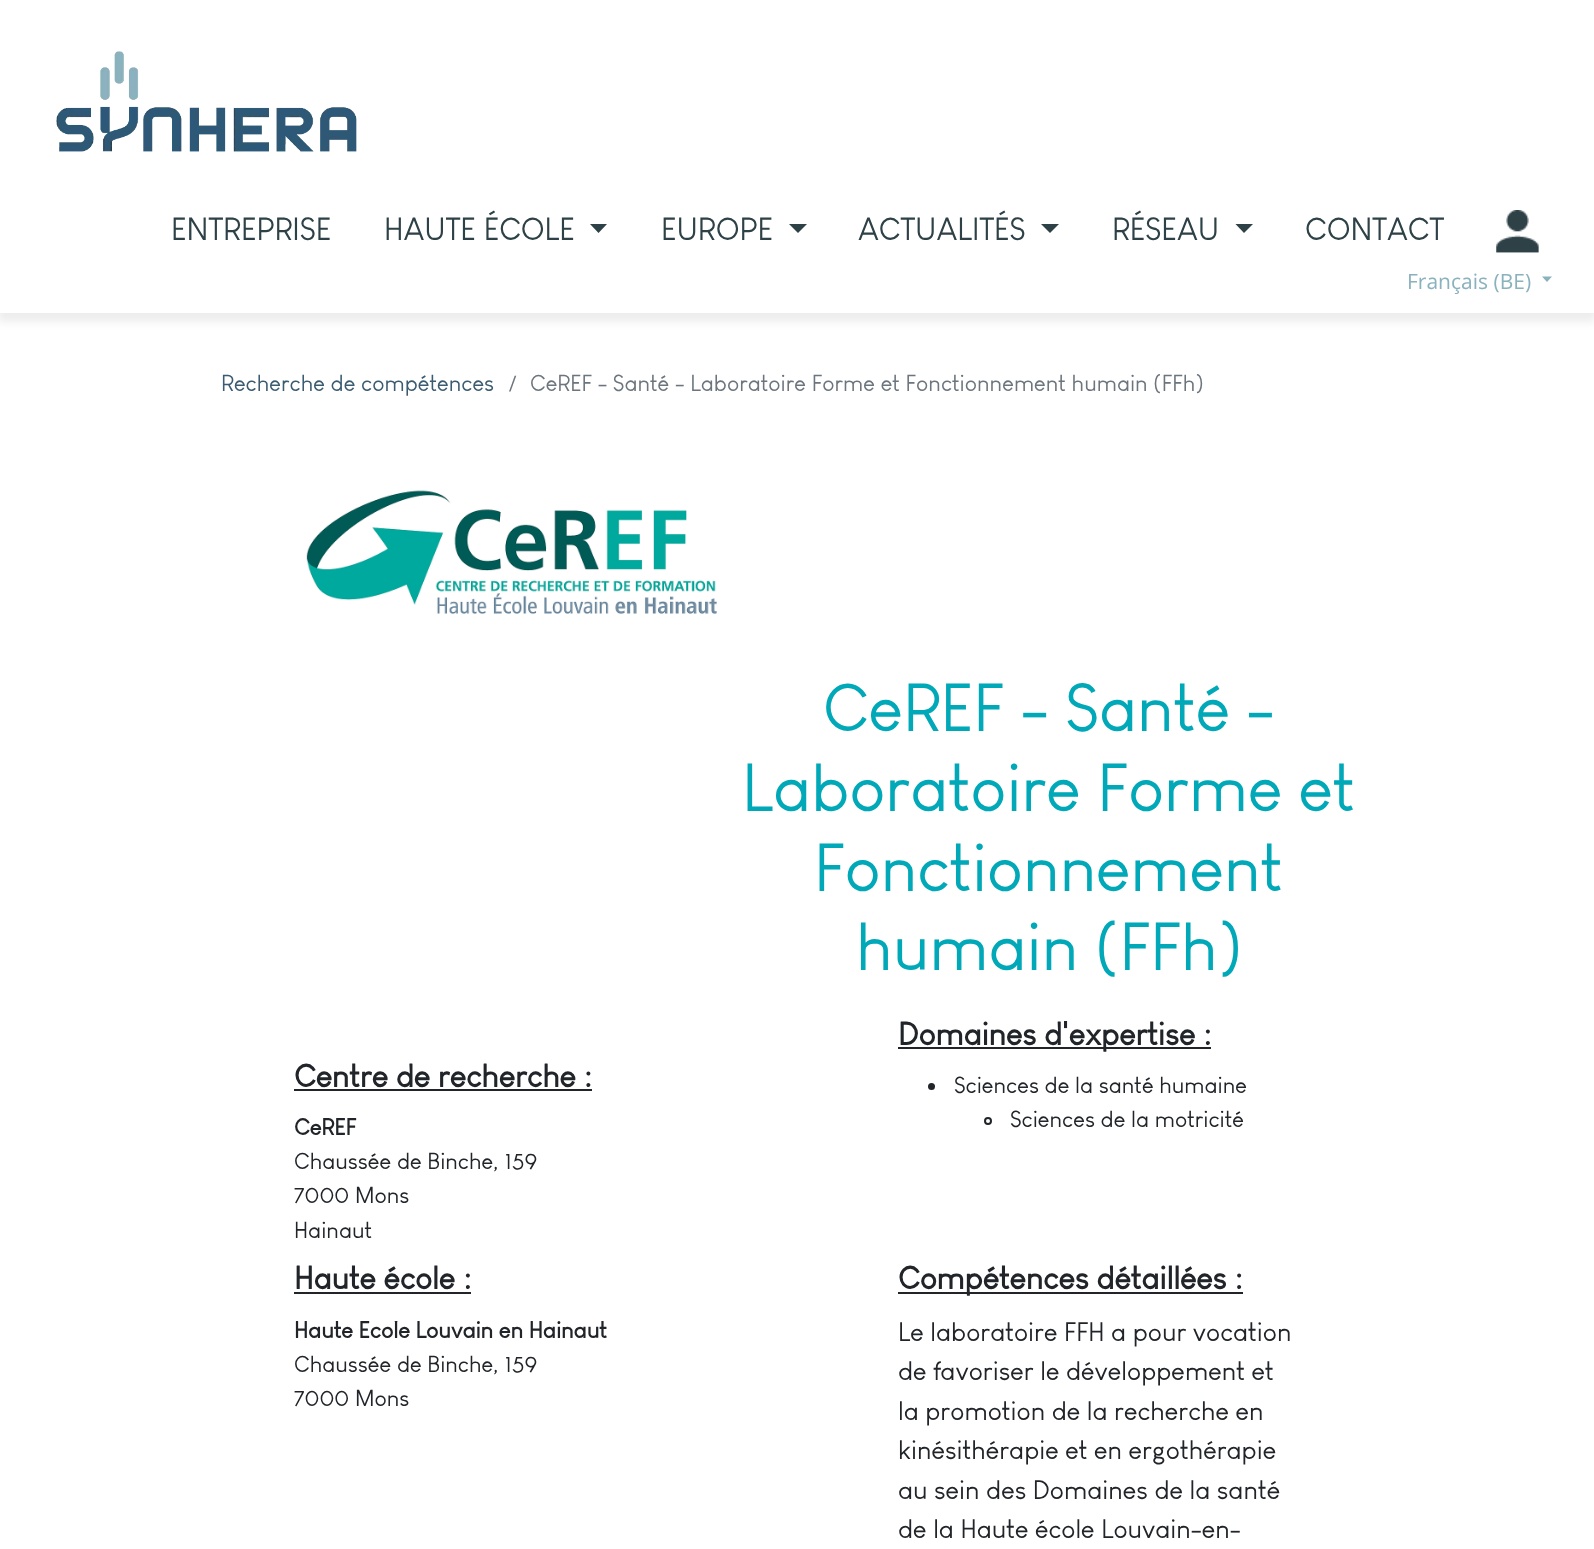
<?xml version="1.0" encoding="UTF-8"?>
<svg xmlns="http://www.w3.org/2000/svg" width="1594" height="1549">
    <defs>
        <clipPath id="clip1"><rect x="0" y="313" width="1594" height="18"/></clipPath>
        <filter id="blur1" x="-50%" y="-200%" width="200%" height="500%"><feGaussianBlur stdDeviation="4.5"/></filter>
    </defs>
    <rect width="100%" height="100%" fill="#FFFFFF"/>
    <g clip-path="url(#clip1)">
        <rect x="-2" y="5" width="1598" height="317" fill="#EDEDED" filter="url(#blur1)"/>
    </g>
    <image x="56" y="51" width="301" height="101" href="img_01.png"/>
    <text x="171" y="240" font-family="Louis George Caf" font-size="31.5" fill="#2D4147">ENTREPRISE</text>
    <text x="384" y="240" font-family="Louis George Caf" font-size="31.5" fill="#2D4147">HAUTE ÉCOLE</text>
    <path d="M 590 224 H 607 L 598.5 233 Z" fill="#2D4147"/>
    <text x="661" y="240" font-family="Louis George Caf" font-size="31.5" fill="#2D4147">EUROPE</text>
    <path d="M 789 224 H 807 L 798 233 Z" fill="#2D4147"/>
    <text x="858" y="240" font-family="Louis George Caf" font-size="31.5" fill="#2D4147">ACTUALITÉS</text>
    <path d="M 1041 224 H 1059 L 1050 233 Z" fill="#2D4147"/>
    <text x="1112" y="240" font-family="Louis George Caf" font-size="31.5" fill="#2D4147">RÉSEAU</text>
    <path d="M 1235.5 224 H 1253 L 1244 233 Z" fill="#2D4147"/>
    <text x="1305" y="240" font-family="Louis George Caf" font-size="31.5" fill="#2D4147">CONTACT</text>
    <image x="1496" y="210" width="43" height="43" href="img_02.png"/>
    <text x="1407" y="289" font-family="Open Sans" font-size="21" fill="#8AB2BD">Français (BE)</text>
    <path d="M 1542 276.5 H 1552 L 1547 282 Z" fill="#8AB2BD"/>
    <text x="221" y="391" font-family="Louis George Caf" font-size="22.75" fill="#3B5B71">Recherche de compétences</text>
    <text x="509" y="391" font-family="Louis George Caf" font-size="22.75" fill="#6C757D">/</text>
    <text x="530" y="391" font-family="Louis George Caf" font-size="22.75" fill="#6C757D">CeREF - Santé - Laboratoire Forme et Fonctionnement humain (FFh)</text>
    <image x="306" y="490" width="411" height="124" href="img_03.png"/>
    <text x="823" y="731" font-family="Louis George Caf" font-size="66.5" fill="#00A8B8">CeREF - Santé -</text>
    <text x="742" y="811" font-family="Louis George Caf" font-size="66.5" fill="#00A8B8">Laboratoire Forme et</text>
    <text x="814" y="891" font-family="Louis George Caf" font-size="66.5" fill="#00A8B8">Fonctionnement</text>
    <text x="856" y="970" font-family="Louis George Caf" font-size="66.5" fill="#00A8B8">humain (FFh)</text>
    <text x="294" y="1087" font-family="Louis George Caf" font-size="31.5" font-weight="700" fill="#212529">Centre de recherche :</text>
    <rect x="294" y="1089" width="298" height="2" fill="#212529"/>
    <text x="294" y="1135" font-family="Louis George Caf" font-size="22.75" font-weight="700" fill="#212529">CeREF</text>
    <text font-family="Louis George Caf" font-size="22.75" fill="#212529">
        <tspan x="294" y="1169">Chaussée de Binche, 159</tspan>
        <tspan x="294" y="1203">7000 Mons</tspan>
        <tspan x="294" y="1238">Hainaut</tspan>
    </text>
    <rect x="898" y="1047" width="313" height="2" fill="#212529"/>
    <text x="898" y="1045" font-family="Louis George Caf" font-size="31.5" font-weight="700" fill="#212529">Domaines d'expertise :</text>
    <circle cx="931.5" cy="1086.5" r="3.5" fill="#212529"/>
    <text x="954" y="1093" font-family="Louis George Caf" font-size="22.75" fill="#212529">Sciences de la santé humaine</text>
    <circle cx="988" cy="1121" r="3" fill="none" stroke="#212529" stroke-width="2"/>
    <text x="1010" y="1127" font-family="Louis George Caf" font-size="22.75" fill="#212529">Sciences de la motricité</text>
    <text x="294" y="1289" font-family="Louis George Caf" font-size="31.5" font-weight="700" fill="#212529">Haute école :</text>
    <rect x="294" y="1292" width="177" height="2" fill="#212529"/>
    <text x="294" y="1338" font-family="Louis George Caf" font-size="22.75" font-weight="700" fill="#212529">Haute Ecole Louvain en Hainaut</text>
    <text font-family="Louis George Caf" font-size="22.75" fill="#212529">
        <tspan x="294" y="1372">Chaussée de Binche, 159</tspan>
        <tspan x="294" y="1406">7000 Mons</tspan>
    </text>
    <rect x="898" y="1292" width="345" height="2" fill="#212529"/>
    <text x="898" y="1289" font-family="Louis George Caf" font-size="31.5" font-weight="700" fill="#212529">Compétences détaillées :</text>
    <text font-family="Louis George Caf" font-size="26.25" fill="#212529">
        <tspan x="898" y="1341">Le laboratoire FFH a pour vocation</tspan>
        <tspan x="898" y="1380">de favoriser le développement et</tspan>
        <tspan x="898" y="1420">la promotion de la recherche en</tspan>
        <tspan x="898" y="1459">kinésithérapie et en ergothérapie</tspan>
        <tspan x="898" y="1499">au sein des Domaines de la santé</tspan>
        <tspan x="898" y="1538">de la Haute école Louvain-en-</tspan>
    </text>
</svg>
